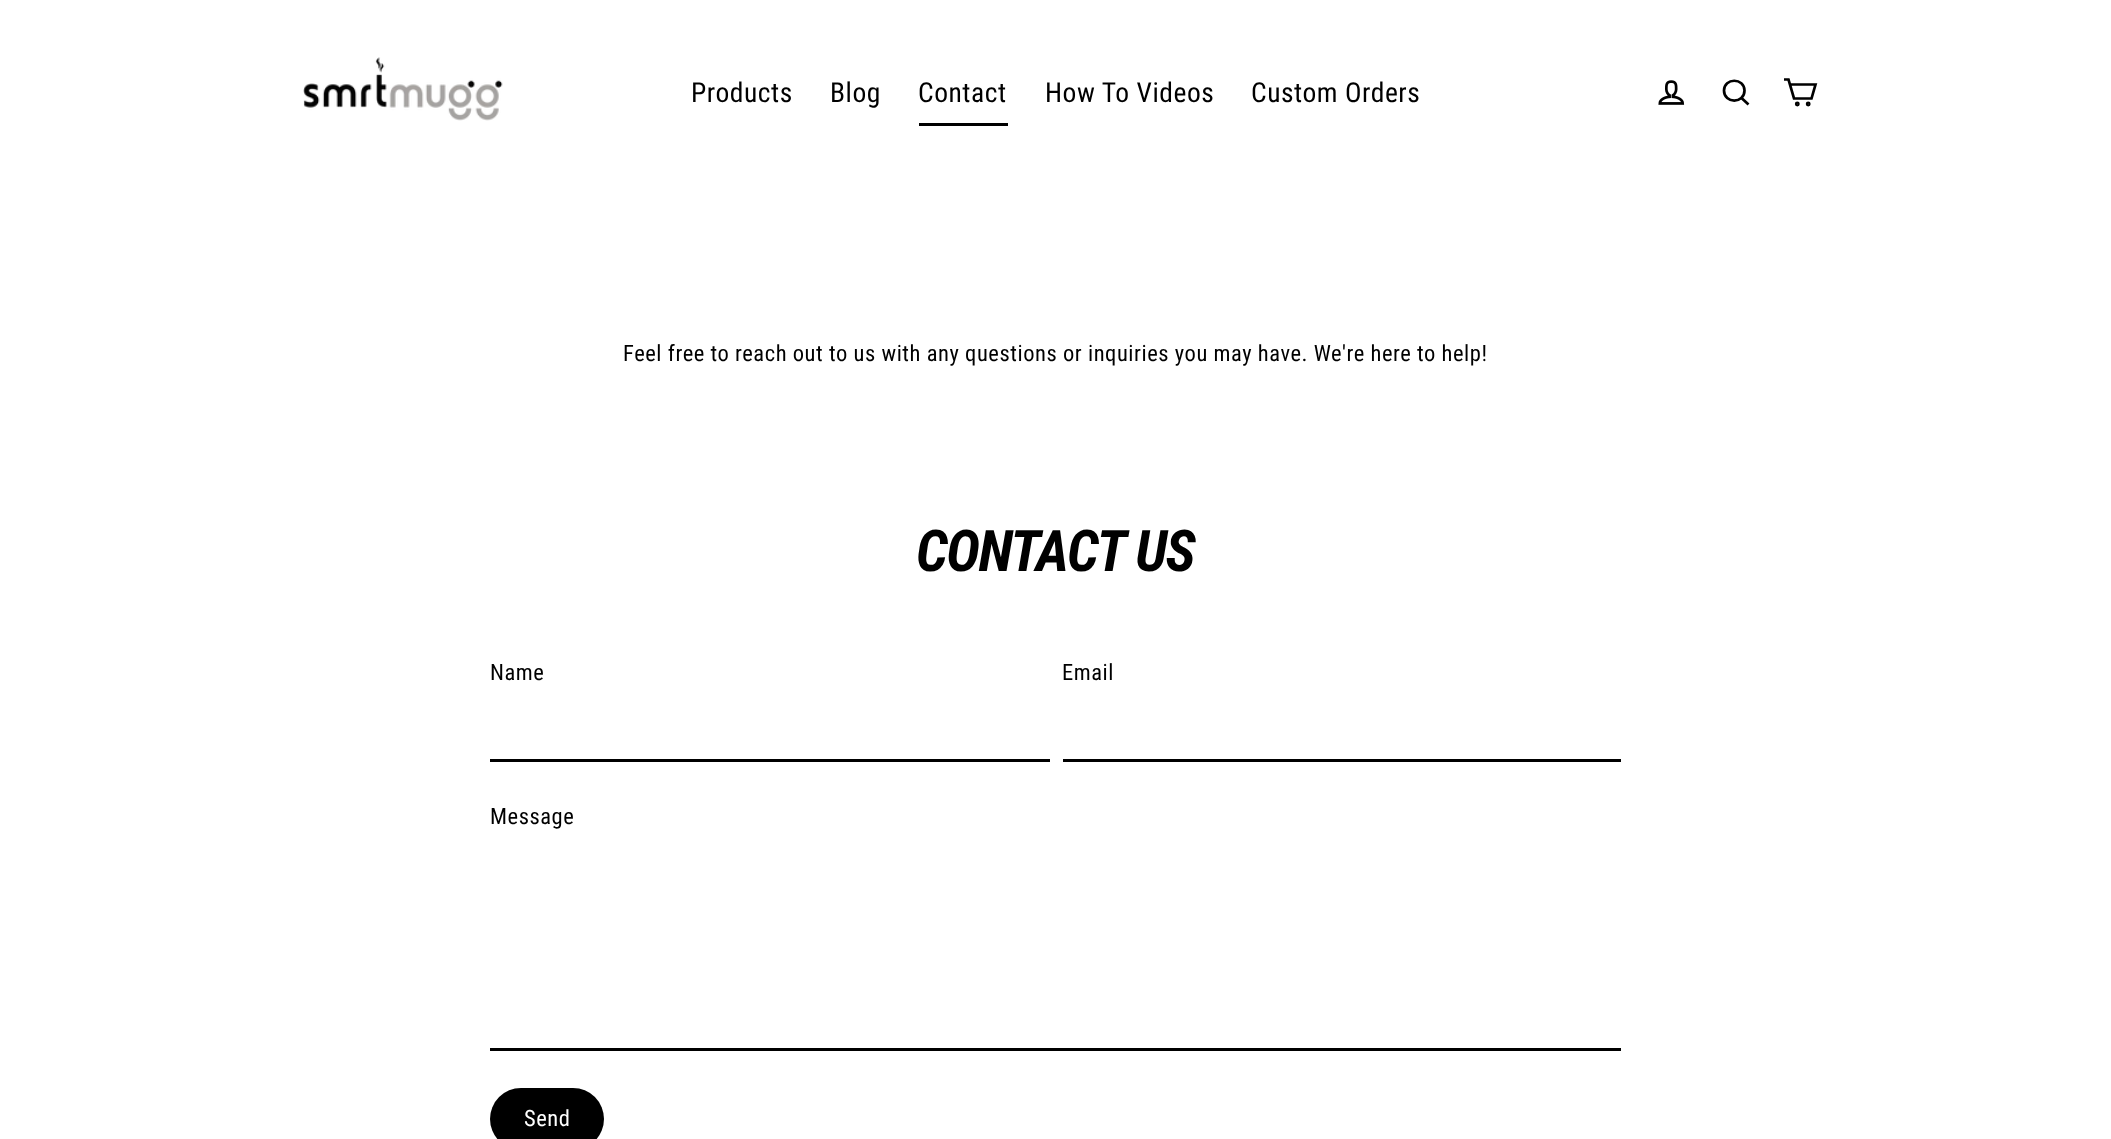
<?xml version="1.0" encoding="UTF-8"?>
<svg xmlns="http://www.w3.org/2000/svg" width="2111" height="1139">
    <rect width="100%" height="100%" fill="#FFFFFF"/>
    <image x="303" y="57" width="200" height="64" href="img_01.png"/>
    <text x="691" y="102" font-family="Roboto Condensed" font-size="27.5" letter-spacing="0.55" fill="#000000">Products</text>
    <text x="830" y="102" font-family="Roboto Condensed" font-size="27.5" letter-spacing="0.55" fill="#000000">Blog</text>
    <text x="918" y="102" font-family="Roboto Condensed" font-size="27.5" letter-spacing="0.55" fill="#000000">Contact</text>
    <rect x="919" y="123" width="89" height="3" fill="#000000"/>
    <text x="1045" y="102" font-family="Roboto Condensed" font-size="27.5" letter-spacing="0.55" fill="#000000">How To Videos</text>
    <text x="1251" y="102" font-family="Roboto Condensed" font-size="27.5" letter-spacing="0.55" fill="#000000">Custom Orders</text>
    <image x="1658" y="80" width="27" height="25" href="img_02.png"/>
    <path d="M 1744.5 90.5 C 1744.5 104 1724 104 1724 90.5 C 1724 77.5 1744.5 77.5 1744.5 90.5 Z M 1748.5 104.5 L 1741.5 98" fill="none" stroke="#000000" stroke-width="2.7"/>
    <path d="M 1790 84.5 H 1815.5 L 1811.5 98.5 H 1794 L 1788.5 79.5 H 1784" fill="none" stroke="#000000" stroke-width="2.7"/>
    <circle cx="1797.3" cy="104" r="1.1" fill="none" stroke="#000000" stroke-width="2.7"/>
    <circle cx="1808.2" cy="104" r="1.1" fill="none" stroke="#000000" stroke-width="2.7"/>
    <text x="623" y="361" font-family="Roboto Condensed" font-size="22.5" letter-spacing="0.55" fill="#000000">Feel free to reach out to us with any questions or inquiries you may have. We're here to help!</text>
    <text x="916" y="571" font-family="Roboto Condensed" font-size="57.5" font-weight="700" font-style="italic" letter-spacing="-1.5" fill="#000000">CONTACT US</text>
    <text x="490" y="680" font-family="Roboto Condensed" font-size="22.5" letter-spacing="0.55" fill="#000000">Name</text>
    <rect x="490" y="759" width="560" height="3" fill="#000000"/>
    <text x="1062" y="680" font-family="Roboto Condensed" font-size="22.5" letter-spacing="0.55" fill="#000000">Email</text>
    <rect x="1063" y="759" width="558" height="3" fill="#000000"/>
    <text x="490" y="824" font-family="Roboto Condensed" font-size="22.5" letter-spacing="0.55" fill="#000000">Message</text>
    <rect x="490" y="1048" width="1131" height="3" fill="#000000"/>
    <rect x="490" y="1088" width="114" height="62" rx="31" fill="#000000"/>
    <text x="524" y="1126" font-family="Roboto Condensed" font-size="22.5" letter-spacing="0.55" fill="#FFFFFF">Send</text>
</svg>
